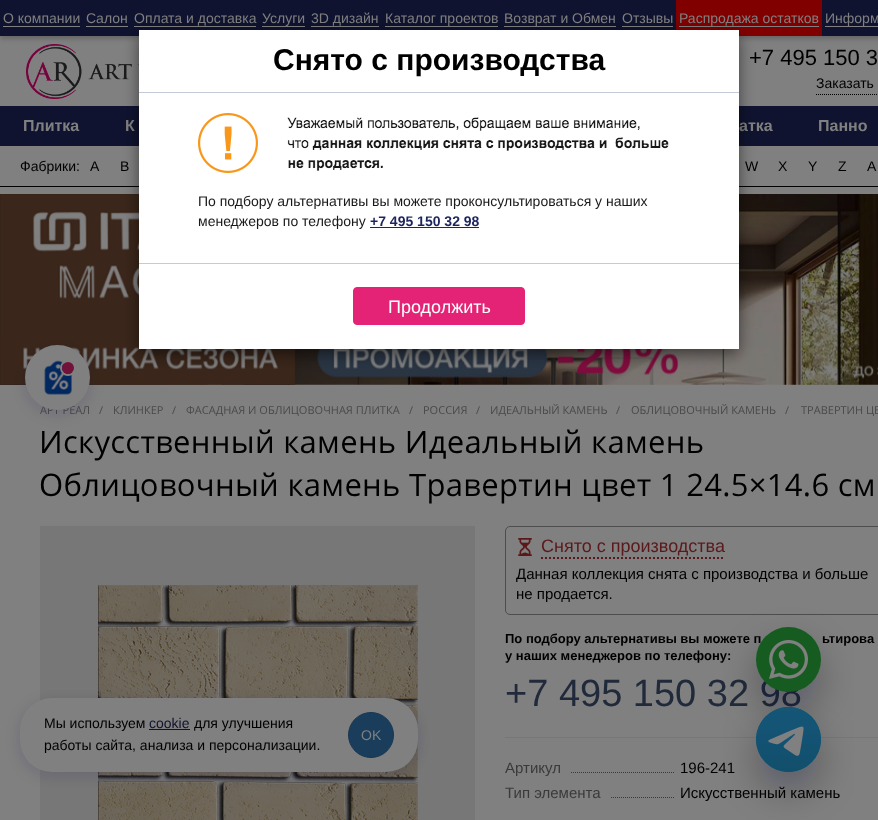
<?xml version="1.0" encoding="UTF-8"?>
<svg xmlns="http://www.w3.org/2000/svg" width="878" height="820">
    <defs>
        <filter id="blur1" x="-50%" y="-200%" width="200%" height="500%"><feGaussianBlur stdDeviation="2.5"/></filter>
        <filter id="blur2" x="-50%" y="-200%" width="200%" height="500%"><feGaussianBlur stdDeviation="6.5"/></filter>
        <filter id="blur3" x="-50%" y="-200%" width="200%" height="500%"><feGaussianBlur stdDeviation="19"/></filter>
        <filter id="blur4" x="-50%" y="-200%" width="200%" height="500%"><feGaussianBlur stdDeviation="7.5"/></filter>
    </defs>
    <rect width="100%" height="100%" fill="#808080"/>
    <image x="26" y="44" width="113" height="55" href="img_01.png"/>
    <rect x="0" y="3" width="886" height="36" fill="#000000" fill-opacity="0.2" filter="url(#blur1)"/>
    <rect x="0" y="0" width="878" height="36" fill="#0F132F"/>
    <text x="3" y="23" font-family="Liberation Sans" font-size="14" fill="#808080">О компании</text>
    <rect x="3" y="26" width="77" height="1" fill="#808080"/>
    <text x="86" y="23" font-family="Liberation Sans" font-size="14" fill="#808080">Cалон</text>
    <rect x="86" y="26" width="42" height="1" fill="#808080"/>
    <text x="134" y="23" font-family="Liberation Sans" font-size="14" fill="#808080">Оплата и доставка</text>
    <rect x="134" y="26" width="122" height="1" fill="#808080"/>
    <text x="262" y="23" font-family="Liberation Sans" font-size="14" fill="#808080">Услуги</text>
    <rect x="262" y="26" width="43" height="1" fill="#808080"/>
    <text x="311" y="23" font-family="Liberation Sans" font-size="14" fill="#808080">3D дизайн</text>
    <rect x="311" y="26" width="68" height="1" fill="#808080"/>
    <text x="385" y="23" font-family="Liberation Sans" font-size="14" fill="#808080">Каталог проектов</text>
    <rect x="385" y="26" width="113" height="1" fill="#808080"/>
    <text x="504" y="23" font-family="Liberation Sans" font-size="14" fill="#808080">Возврат и Обмен</text>
    <rect x="504" y="26" width="112" height="1" fill="#808080"/>
    <text x="622" y="23" font-family="Liberation Sans" font-size="14" fill="#808080">Отзывы</text>
    <rect x="622" y="26" width="51" height="1" fill="#808080"/>
    <rect x="676" y="0" width="146" height="36" fill="#800000"/>
    <text x="679" y="23" font-family="Liberation Sans" font-size="14" fill="#808080">Распродажа остатков</text>
    <rect x="679" y="26" width="140" height="1" fill="#808080"/>
    <text x="825" y="23" font-family="Liberation Sans" font-size="14" fill="#808080">Информ</text>
    <rect x="825" y="26" width="53" height="1" fill="#808080"/>
    <text x="749" y="65" font-family="Liberation Sans" font-size="22" fill="#000000">+7 495 150 3</text>
    <path d="M 816 94.5 H 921" fill="none" stroke="#000000" stroke-dasharray="1 1"/>
    <text x="816" y="88" font-family="Liberation Sans" font-size="14" fill="#000000">Заказать</text>
    <rect x="0" y="106" width="878" height="40" fill="#0F132F"/>
    <text x="23" y="131" font-family="Liberation Sans" font-size="16" font-weight="700" fill="#808080">Плитка</text>
    <text x="125" y="131" font-family="Liberation Sans" font-size="16" font-weight="700" fill="#808080">К</text>
    <text x="739" y="131" font-family="Liberation Sans" font-size="16" font-weight="700" fill="#808080">атка</text>
    <text x="818" y="131" font-family="Liberation Sans" font-size="16" font-weight="700" fill="#808080">Панно</text>
    <rect x="0" y="186" width="878" height="1" fill="#000000"/>
    <text x="20" y="171" font-family="Liberation Sans" font-size="14" fill="#000000">Фабрики:</text>
    <text x="90" y="171" font-family="Liberation Sans" font-size="14" fill="#000000">A</text>
    <text x="120" y="171" font-family="Liberation Sans" font-size="14" fill="#000000">B</text>
    <text x="745" y="171" font-family="Liberation Sans" font-size="14" fill="#000000">W</text>
    <text x="778" y="171" font-family="Liberation Sans" font-size="14" fill="#000000">X</text>
    <text x="808" y="171" font-family="Liberation Sans" font-size="14" fill="#000000">Y</text>
    <text x="838" y="171" font-family="Liberation Sans" font-size="14" fill="#000000">Z</text>
    <text x="867" y="171" font-family="Liberation Sans" font-size="14" fill="#000000">А</text>
    <image x="0" y="194" width="878" height="191" href="img_02.png"/>
    <image x="0" y="194" width="878" height="191" href="img_03.png"/>
    <text x="40" y="414" font-family="Open Sans" font-size="11" fill="#494949">АРТ РЕАЛ</text>
    <text x="99" y="414" font-family="Open Sans" font-size="11" fill="#494949">/</text>
    <text x="113" y="414" font-family="Open Sans" font-size="11" fill="#494949">КЛИНКЕР</text>
    <text x="172" y="414" font-family="Open Sans" font-size="11" fill="#494949">/</text>
    <text x="186" y="414" font-family="Open Sans" font-size="11" fill="#494949">ФАСАДНАЯ И ОБЛИЦОВОЧНАЯ ПЛИТКА</text>
    <text x="409" y="414" font-family="Open Sans" font-size="11" fill="#494949">/</text>
    <text x="423" y="414" font-family="Open Sans" font-size="11" fill="#494949">РОССИЯ</text>
    <text x="476" y="414" font-family="Open Sans" font-size="11" fill="#494949">/</text>
    <text x="490" y="414" font-family="Open Sans" font-size="11" fill="#494949">ИДЕАЛЬНЫЙ КАМЕНЬ</text>
    <text x="616" y="414" font-family="Open Sans" font-size="11" fill="#494949">/</text>
    <text x="631" y="414" font-family="Open Sans" font-size="11" fill="#494949">ОБЛИЦОВОЧНЫЙ КАМЕНЬ</text>
    <text x="785" y="414" font-family="Open Sans" font-size="11" fill="#494949">/</text>
    <text x="801" y="414" font-family="Open Sans" font-size="11" fill="#494949">ТРАВЕРТИН ЦВ</text>
    <text font-family="Open Sans" font-size="31" letter-spacing="0.3" fill="#000000">
        <tspan x="39" y="453">Искусственный камень Идеальный камень</tspan>
        <tspan x="39" y="496">Облицовочный камень Травертин цвет 1 24.5×14.6 см</tspan>
    </text>
    <rect x="40" y="526" width="435" height="294" fill="#777777"/>
    <image x="98" y="585" width="320" height="235" href="img_04.png"/>
    <rect x="505.5" y="526.5" width="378" height="88" rx="4.5" fill="none" stroke="#4D4D4D"/>
    <path d="M 541 558 H 725" fill="none" stroke="#5B191B" stroke-width="2" stroke-dasharray="2 2"/>
    <image x="518" y="538" width="14" height="18" href="img_05.png"/>
    <text x="541" y="552" font-family="Liberation Sans" font-size="18" fill="#5B191B">Снято с производства</text>
    <text font-family="Liberation Sans" font-size="15" fill="#000000">
        <tspan x="516" y="579">Данная коллекция снята с производства и больше</tspan>
        <tspan x="516" y="599">не продается.</tspan>
    </text>
    <text x="505" y="643" font-family="Liberation Sans" font-size="13" font-weight="700" fill="#000000">По подбору альтернативы вы можете п</text>
    <text x="822" y="643" font-family="Liberation Sans" font-size="13" font-weight="700" fill="#000000">ьтирова</text>
    <text x="505" y="660" font-family="Liberation Sans" font-size="13" font-weight="700" fill="#000000">у наших менеджеров по телефону:</text>
    <text x="505" y="706" font-family="Liberation Sans" font-size="38" fill="#202A3A">+7 495 150 32 98</text>
    <rect x="505" y="737" width="373" height="1" fill="#777777"/>
    <path d="M 505 772.5 H 675" fill="none" stroke="#3A3A3A" stroke-dasharray="1 1"/>
    <rect x="505" y="772" width="65" height="1" fill="#808080"/>
    <text x="505" y="773" font-family="Liberation Sans" font-size="15" fill="#3A3A3A">Артикул</text>
    <text x="680" y="773" font-family="Liberation Sans" font-size="15" fill="#000000">196-241</text>
    <path d="M 505 797.5 H 675" fill="none" stroke="#3A3A3A" stroke-dasharray="1 1"/>
    <rect x="505" y="797" width="105" height="1" fill="#808080"/>
    <text x="505" y="798" font-family="Liberation Sans" font-size="15" fill="#3A3A3A">Тип элемента</text>
    <text x="680" y="798" font-family="Liberation Sans" font-size="15" fill="#000000">Искусственный камень</text>
    <rect x="23" y="347" width="69" height="69" rx="34.5" fill="#1F0045" fill-opacity="0.11" filter="url(#blur2)"/>
    <circle cx="57.5" cy="377.5" r="32.5" fill="#808080"/>
    <image x="44" y="360" width="28" height="35" href="img_06.png"/>
    <circle cx="68" cy="368" r="7" fill="none" stroke="#808080" stroke-width="2"/>
    <circle cx="68" cy="368" r="6" fill="#72123B"/>
    <rect x="18" y="700" width="402" height="78" rx="34" fill="#1F0045" fill-opacity="0.11" filter="url(#blur2)"/>
    <rect x="20" y="698" width="398" height="74" rx="32" fill="#808080"/>
    <text x="44" y="728" font-family="Liberation Sans" font-size="14" fill="#000000">Мы используем</text>
    <text x="149" y="728" font-family="Liberation Sans" font-size="14" fill="#0F132F">cookie</text>
    <rect x="149" y="729" width="41" height="1" fill="#0F132F"/>
    <text x="194" y="728" font-family="Liberation Sans" font-size="14" fill="#000000">для улучшения</text>
    <text x="44" y="750" font-family="Liberation Sans" font-size="14" fill="#000000">работы сайта, анализа и персонализации.</text>
    <circle cx="371" cy="735" r="22.5" fill="#1A3D5C" stroke="#173752"/>
    <text x="361" y="740" font-family="Liberation Sans" font-size="14" fill="#808080">OK</text>
    <rect x="756" y="646" width="65" height="65" rx="32.5" fill="#111216" fill-opacity="0.3" filter="url(#blur3)"/>
    <circle cx="788.5" cy="659.5" r="32.5" fill="#165C21"/>
    <image x="769" y="640" width="39" height="39" href="img_07.png"/>
    <rect x="756" y="726" width="65" height="65" rx="32.5" fill="#111216" fill-opacity="0.3" filter="url(#blur3)"/>
    <circle cx="788.5" cy="739.5" r="32.5" fill="#005976"/>
    <image x="756" y="707" width="65" height="65" href="img_08.png"/>
    <rect x="139" y="35" width="600" height="319" rx="6" fill="#000000" fill-opacity="0.5" filter="url(#blur4)"/>
    <rect x="139" y="30" width="600" height="319" fill="#FFFFFF"/>
    <text x="273" y="70" font-family="Liberation Sans" font-size="30" font-weight="700" fill="#000000">Снято с производства</text>
    <rect x="139" y="92" width="600" height="1" fill="#C4CBD7"/>
    <rect x="139" y="263" width="600" height="1" fill="#C4CBD7"/>
    <image x="198" y="113" width="60" height="60" href="img_09.png"/>
    <image x="287" y="117" width="382" height="54" href="img_10.png"/>
    <text font-family="Liberation Sans" font-size="14" fill="#191919">
        <tspan x="198" y="206">По подбору альтернативы вы можете проконсультироваться у наших</tspan>
        <tspan x="198" y="226">менеджеров по телефону</tspan>
    </text>
    <text x="370" y="226" font-family="Liberation Sans" font-size="14" font-weight="700" fill="#1D255E">+7 495 150 32 98</text>
    <rect x="370" y="227" width="109" height="1" fill="#1D255E"/>
    <rect x="353.5" y="287.5" width="171" height="37" rx="3.5" fill="#E42376" stroke="#E42376"/>
    <text x="388" y="313" font-family="Liberation Sans" font-size="18" fill="#FFFFFF">Продолжить</text>
</svg>
